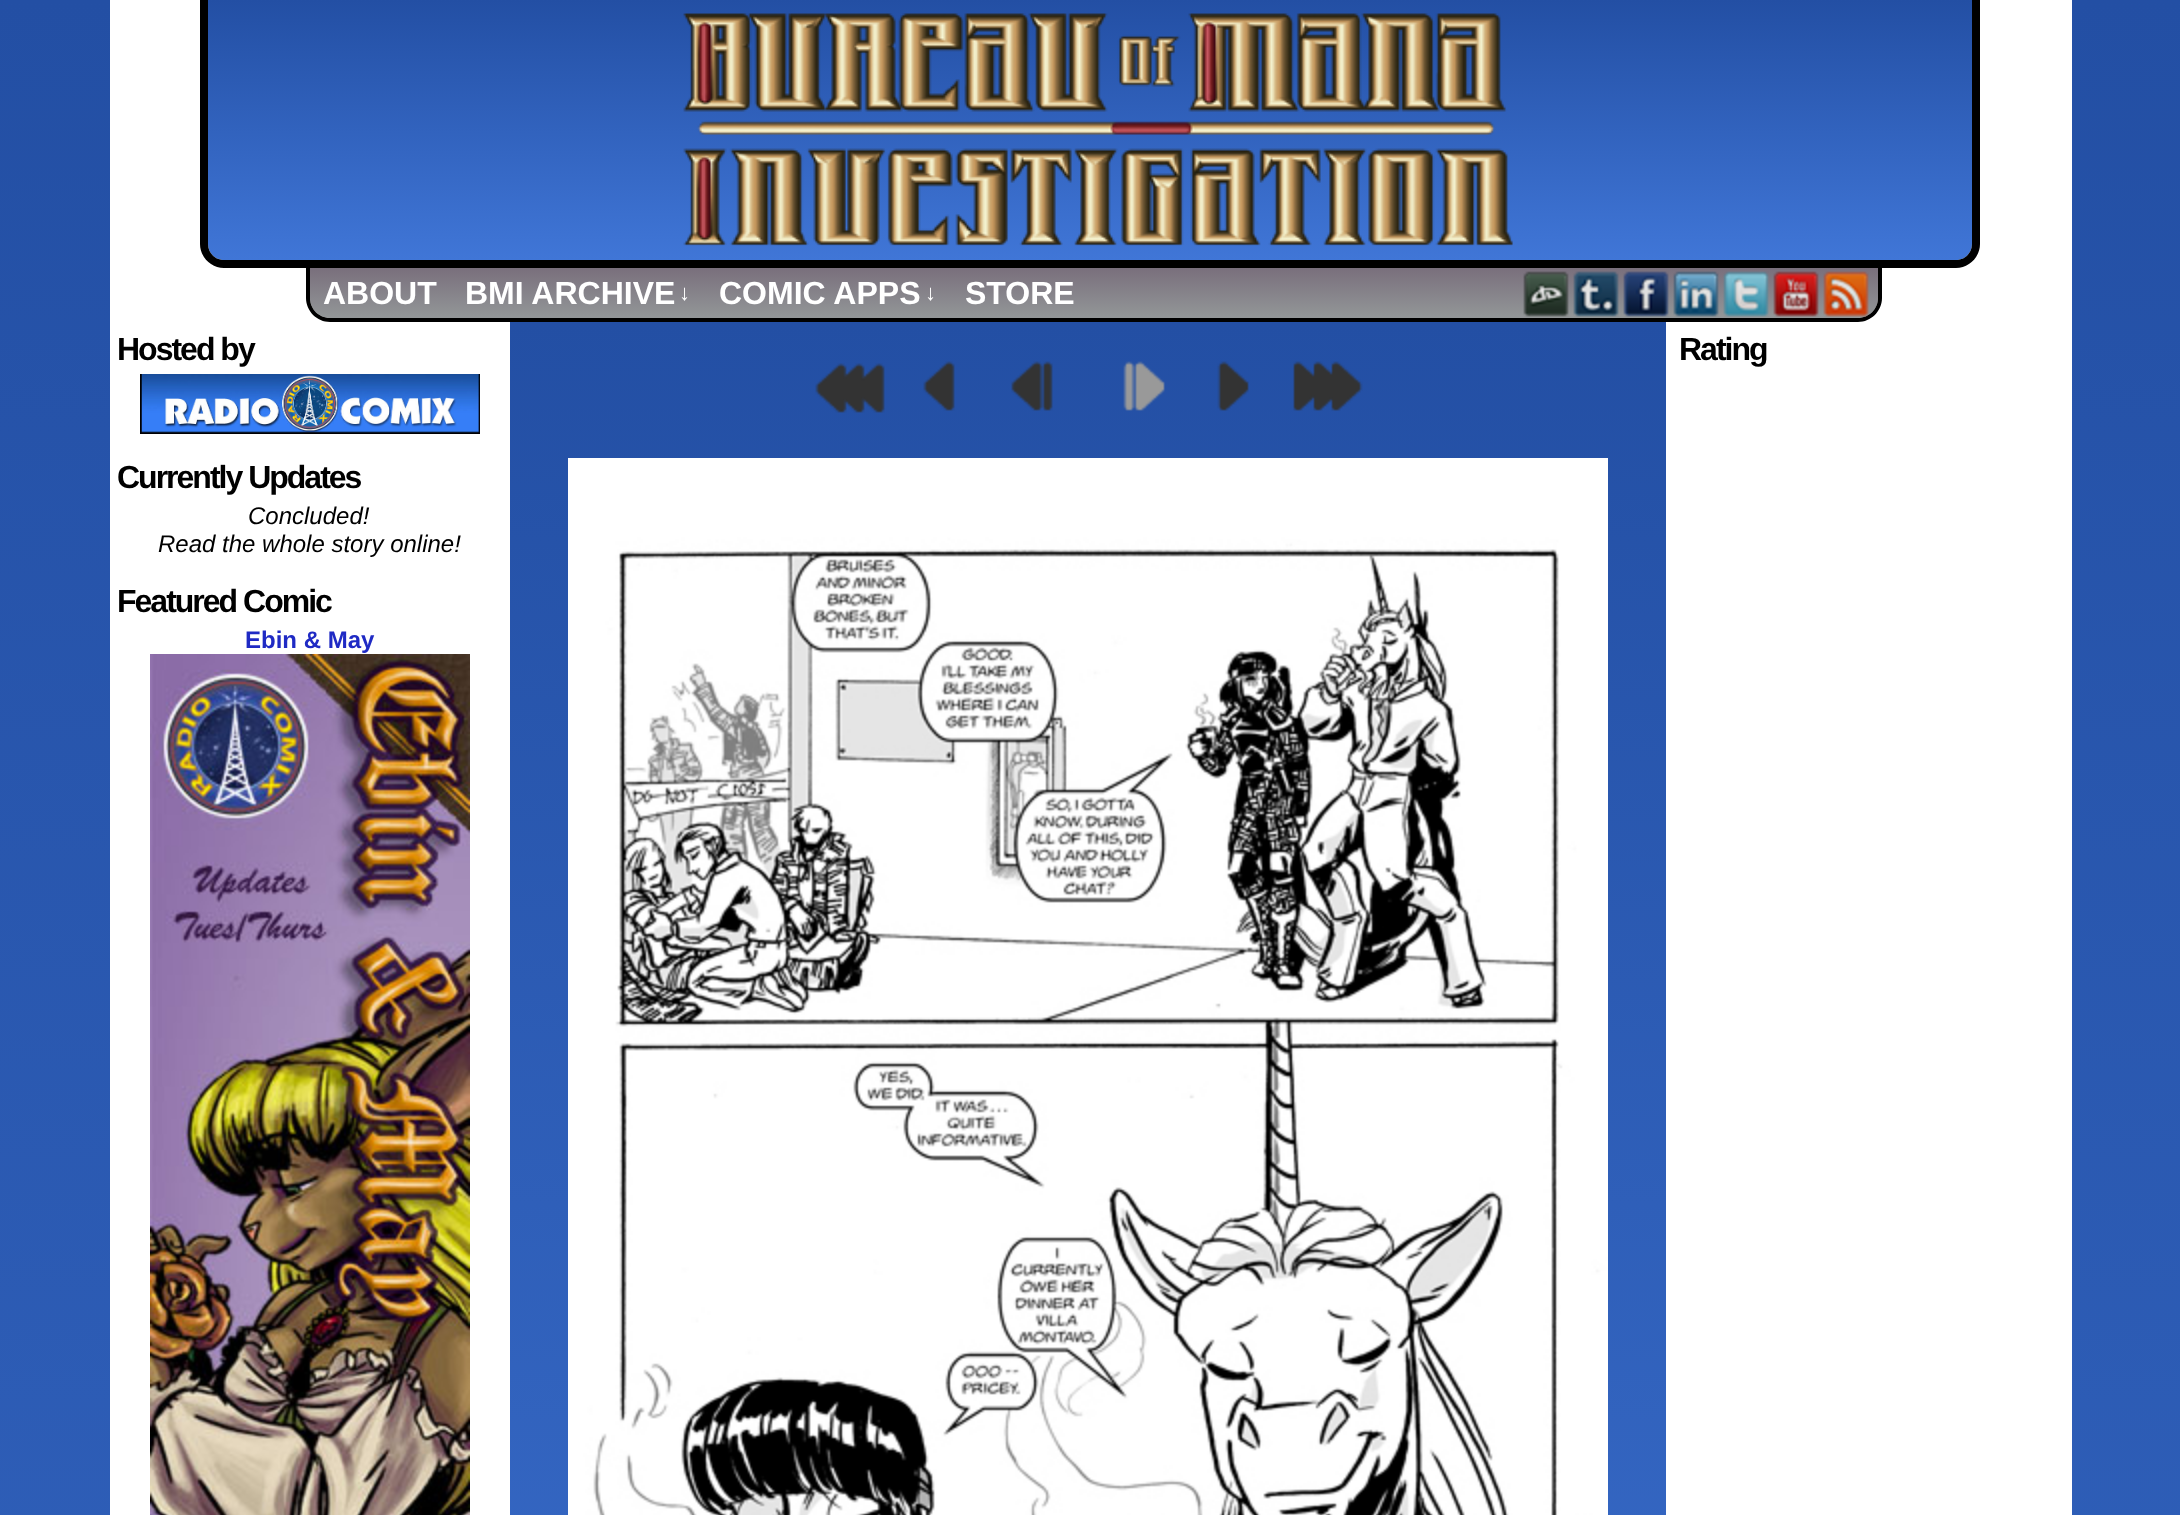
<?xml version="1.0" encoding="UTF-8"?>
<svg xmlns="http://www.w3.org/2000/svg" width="2180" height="1515">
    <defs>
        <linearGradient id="g1" gradientUnits="userSpaceOnUse" x1="1090" y1="0" x2="1090" y2="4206"><stop offset="0" stop-color="#234FA4"/><stop offset="1" stop-color="#4076D7"/></linearGradient>
        <linearGradient id="g2" gradientUnits="userSpaceOnUse" x1="1090" y1="0" x2="1090" y2="260"><stop offset="0" stop-color="#234FA4"/><stop offset="1" stop-color="#4076D7"/></linearGradient>
        <linearGradient id="g3" gradientUnits="userSpaceOnUse" x1="1094" y1="268" x2="1094" y2="318"><stop offset="0" stop-color="#796F7C"/><stop offset="1" stop-color="#939798"/></linearGradient>
        <linearGradient id="g4" gradientUnits="userSpaceOnUse" x1="1088" y1="322" x2="1088" y2="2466"><stop offset="0" stop-color="#234FA4"/><stop offset="1" stop-color="#4076D7"/></linearGradient>
    </defs>
    <rect width="100%" height="100%" fill="#FFFFFF"/>
    <rect x="0" y="0" width="2180" height="1515" fill="url(#g1)"/>
    <rect x="110" y="0" width="1962" height="1515" fill="#FFFFFF"/>
    <path d="M 208 0 H 1972 V 244 C 1972 253 1965 260 1956 260 H 224 C 215 260 208 253 208 244 Z" fill="url(#g2)"/>
    <path d="M 200 0 H 1980 V 244 C 1980 257 1969 268 1956 268 H 224 C 211 268 200 257 200 244 Z M 208 0 H 1972 V 244 C 1972 253 1965 260 1956 260 H 224 C 215 260 208 253 208 244 Z" fill="#000000" fill-rule="evenodd"/>
    <image x="683" y="13" width="830" height="233" href="img_01.png"/>
    <path d="M 310 268 H 1878 V 298 C 1878 309 1869 318 1858 318 H 330 C 319 318 310 309 310 298 Z" fill="url(#g3)"/>
    <path d="M 306 268 H 1882 V 298 C 1882 311 1871 322 1858 322 H 330 C 317 322 306 311 306 298 Z M 310 268 H 1878 V 298 C 1878 309 1869 318 1858 318 H 330 C 319 318 310 309 310 298 Z" fill="#000000" fill-rule="evenodd"/>
    <text x="323" y="304" font-family="Liberation Sans" font-size="32" font-weight="700" fill="#FFFFFF">ABOUT</text>
    <text x="465" y="304" font-family="Liberation Sans" font-size="32" font-weight="700" fill="#FFFFFF">BMI ARCHIVE</text>
    <text x="679" y="300" font-family="Liberation Sans" font-size="22" font-weight="700" fill="#FFFFFF">↓</text>
    <text x="719" y="304" font-family="Liberation Sans" font-size="32" font-weight="700" fill="#FFFFFF">COMIC APPS</text>
    <text x="925" y="300" font-family="Liberation Sans" font-size="22" font-weight="700" fill="#FFFFFF">↓</text>
    <text x="965" y="304" font-family="Liberation Sans" font-size="32" font-weight="700" fill="#FFFFFF">STORE</text>
    <image x="1523" y="271" width="46" height="46" href="img_02.png"/>
    <image x="1573" y="271" width="46" height="46" href="img_03.png"/>
    <image x="1623" y="271" width="46" height="46" href="img_04.png"/>
    <image x="1673" y="271" width="46" height="46" href="img_05.png"/>
    <image x="1723" y="271" width="46" height="46" href="img_06.png"/>
    <image x="1773" y="271" width="46" height="46" href="img_07.png"/>
    <image x="1823" y="271" width="46" height="46" href="img_08.png"/>
    <text x="117" y="360" font-family="Liberation Sans" font-size="32" font-weight="700" letter-spacing="-2" fill="#000000">Hosted by</text>
    <image x="140" y="374" width="340" height="60" href="img_09.png"/>
    <text x="117" y="488" font-family="Liberation Sans" font-size="32" font-weight="700" letter-spacing="-2" fill="#000000">Currently Updates</text>
    <text x="248" y="524" font-family="Liberation Sans" font-size="24" font-style="italic" fill="#000000">Concluded!</text>
    <text x="158" y="552" font-family="Liberation Sans" font-size="24" font-style="italic" fill="#000000">Read the whole story online!</text>
    <text x="117" y="612" font-family="Liberation Sans" font-size="32" font-weight="700" letter-spacing="-2" fill="#000000">Featured Comic</text>
    <text x="245" y="648" font-family="Liberation Sans" font-size="24" font-weight="700" fill="#1F2AC4">Ebin &amp; May</text>
    <image x="150" y="654" width="320" height="861" href="img_10.png"/>
    <rect x="510" y="322" width="1156" height="1193" fill="url(#g4)"/>
    <image x="815" y="363" width="70" height="50" href="img_11.png"/>
    <image x="923" y="361" width="32" height="50" href="img_12.png"/>
    <image x="1011" y="361" width="42" height="50" href="img_13.png"/>
    <image x="1123" y="361" width="42" height="50" href="img_14.png"/>
    <image x="1217" y="361" width="32" height="50" href="img_15.png"/>
    <image x="1293" y="361" width="70" height="50" href="img_16.png"/>
    <image x="568" y="458" width="1040" height="1057" href="img_17.png"/>
    <text x="1679" y="360" font-family="Liberation Sans" font-size="32" font-weight="700" letter-spacing="-2" fill="#000000">Rating</text>
</svg>
